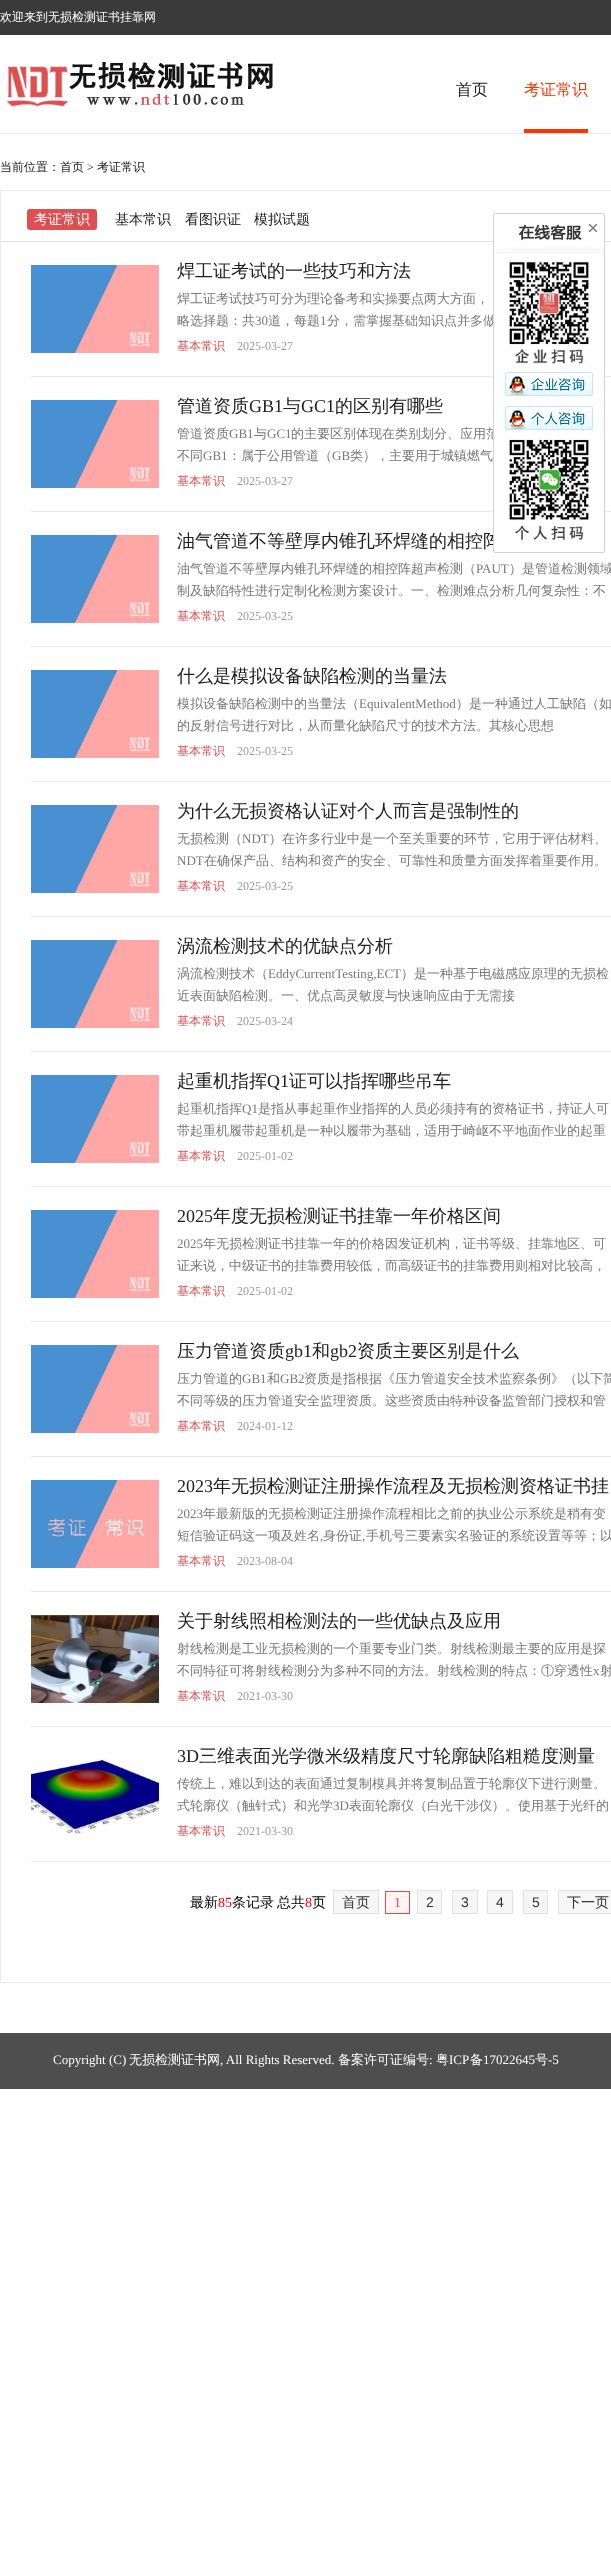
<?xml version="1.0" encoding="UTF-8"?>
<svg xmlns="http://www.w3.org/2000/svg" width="611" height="2570">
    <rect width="100%" height="100%" fill="#FFFFFF"/>
    <rect x="0" y="0" width="611" height="35" fill="#3A3A3A"/>
    <text x="0" y="21" font-family="WenQuanYi Zen Hei" font-size="12" font-weight="500" fill="#FFFFFF">欢迎来到无损检测证书挂靠网</text>
    <rect x="0" y="133" width="611" height="1" fill="#EAEAEA"/>
    <image x="7" y="62" width="266" height="45" href="img_01.png"/>
    <text x="456" y="95" font-family="WenQuanYi Zen Hei" font-size="16" font-weight="500" fill="#202020">首页</text>
    <rect x="524" y="129" width="64" height="4" fill="#FF3300"/>
    <text x="524" y="95" font-family="WenQuanYi Zen Hei" font-size="16" font-weight="500" fill="#FF3300">考证常识</text>
    <text x="0" y="171" font-family="WenQuanYi Zen Hei" font-size="12" font-weight="500" fill="#202020">当前位置：首页</text>
    <text x="87" y="171" font-family="Liberation Serif" font-size="12" fill="#202020">&gt;</text>
    <text x="97" y="171" font-family="WenQuanYi Zen Hei" font-size="12" font-weight="500" fill="#202020">考证常识</text>
    <rect x="0.5" y="190.5" width="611" height="1792" fill="none" stroke="#EAEAEA"/>
    <rect x="1" y="241" width="610" height="1" fill="#E2E2E2"/>
    <rect x="27" y="209" width="70" height="21" rx="3" fill="#DD4F50"/>
    <text x="34" y="224" font-family="WenQuanYi Zen Hei" font-size="14" font-weight="500" fill="#FFFFFF">考证常识</text>
    <text x="115" y="224" font-family="WenQuanYi Zen Hei" font-size="14" font-weight="500" fill="#202020">基本常识</text>
    <text x="185" y="224" font-family="WenQuanYi Zen Hei" font-size="14" font-weight="500" fill="#202020">看图识证</text>
    <text x="254" y="224" font-family="WenQuanYi Zen Hei" font-size="14" font-weight="500" fill="#202020">模拟试题</text>
    <rect x="31" y="376" width="580" height="1" fill="#EAEAEA"/>
    <image x="31" y="265" width="128" height="88" href="img_02.png"/>
    <text x="177" y="277" font-family="WenQuanYi Zen Hei" font-size="18" font-weight="500" fill="#202020">焊工证考试的一些技巧和方法</text>
    <text font-family="WenQuanYi Zen Hei" font-size="13" font-weight="500" fill="#777777">
        <tspan x="177" y="303">焊工证考试技巧可分为理论备考和实操要点两大方面，</tspan>
        <tspan x="177" y="325">略选择题：共</tspan>
    </text>
    <text x="255" y="325" font-family="Liberation Serif" font-size="13" fill="#777777">30</text>
    <text x="268" y="325" font-family="WenQuanYi Zen Hei" font-size="13" font-weight="500" fill="#777777">道，每题</text>
    <text x="320" y="325" font-family="Liberation Serif" font-size="13" fill="#777777">1</text>
    <text x="327" y="325" font-family="WenQuanYi Zen Hei" font-size="13" font-weight="500" fill="#777777">分，需掌握基础知识点并多做</text>
    <text x="177" y="350" font-family="WenQuanYi Zen Hei" font-size="12" font-weight="500" fill="#DD4F50">基本常识</text>
    <text x="237" y="350" font-family="Liberation Serif" font-size="12" fill="#999999">2025-03-27</text>
    <rect x="31" y="511" width="580" height="1" fill="#EAEAEA"/>
    <image x="31" y="400" width="128" height="88" href="img_03.png"/>
    <text x="177" y="412" font-family="WenQuanYi Zen Hei" font-size="18" font-weight="500" fill="#202020">管道资质</text>
    <text x="249" y="412" font-family="Liberation Serif" font-size="18" fill="#202020">GB1</text>
    <text x="283" y="412" font-family="WenQuanYi Zen Hei" font-size="18" font-weight="500" fill="#202020">与</text>
    <text x="301" y="412" font-family="Liberation Serif" font-size="18" fill="#202020">GC1</text>
    <text x="335" y="412" font-family="WenQuanYi Zen Hei" font-size="18" font-weight="500" fill="#202020">的区别有哪些</text>
    <text x="177" y="438" font-family="WenQuanYi Zen Hei" font-size="13" font-weight="500" fill="#777777">管道资质</text>
    <text x="229" y="438" font-family="Liberation Serif" font-size="13" fill="#777777">GB1</text>
    <text x="254" y="438" font-family="WenQuanYi Zen Hei" font-size="13" font-weight="500" fill="#777777">与</text>
    <text x="267" y="438" font-family="Liberation Serif" font-size="13" fill="#777777">GC1</text>
    <text x="291" y="438" font-family="WenQuanYi Zen Hei" font-size="13" font-weight="500" fill="#777777">的主要区别体现在类别划分、应用范</text>
    <text x="177" y="460" font-family="WenQuanYi Zen Hei" font-size="13" font-weight="500" fill="#777777">不同</text>
    <text x="203" y="460" font-family="Liberation Serif" font-size="13" fill="#777777">GB1</text>
    <text x="228" y="460" font-family="WenQuanYi Zen Hei" font-size="13" font-weight="500" fill="#777777">：属于公用管道（</text>
    <text x="332" y="460" font-family="Liberation Serif" font-size="13" fill="#777777">GB</text>
    <text x="350" y="460" font-family="WenQuanYi Zen Hei" font-size="13" font-weight="500" fill="#777777">类），主要用于城镇燃气</text>
    <text x="177" y="485" font-family="WenQuanYi Zen Hei" font-size="12" font-weight="500" fill="#DD4F50">基本常识</text>
    <text x="237" y="485" font-family="Liberation Serif" font-size="12" fill="#999999">2025-03-27</text>
    <rect x="31" y="646" width="580" height="1" fill="#EAEAEA"/>
    <image x="31" y="535" width="128" height="88" href="img_04.png"/>
    <text x="177" y="547" font-family="WenQuanYi Zen Hei" font-size="18" font-weight="500" fill="#202020">油气管道不等壁厚内锥孔环焊缝的相控阵</text>
    <text x="177" y="573" font-family="WenQuanYi Zen Hei" font-size="13" font-weight="500" fill="#777777">油气管道不等壁厚内锥孔环焊缝的相控阵超声检测（</text>
    <text x="476" y="573" font-family="Liberation Serif" font-size="13" fill="#777777">PAUT</text>
    <text x="509" y="573" font-family="WenQuanYi Zen Hei" font-size="13" font-weight="500" fill="#777777">）是管道检测领域</text>
    <text x="177" y="595" font-family="WenQuanYi Zen Hei" font-size="13" font-weight="500" fill="#777777">制及缺陷特性进行定制化检测方案设计。一、检测难点分析几何复杂性：不</text>
    <text x="177" y="620" font-family="WenQuanYi Zen Hei" font-size="12" font-weight="500" fill="#DD4F50">基本常识</text>
    <text x="237" y="620" font-family="Liberation Serif" font-size="12" fill="#999999">2025-03-25</text>
    <rect x="31" y="781" width="580" height="1" fill="#EAEAEA"/>
    <image x="31" y="670" width="128" height="88" href="img_05.png"/>
    <text x="177" y="682" font-family="WenQuanYi Zen Hei" font-size="18" font-weight="500" fill="#202020">什么是模拟设备缺陷检测的当量法</text>
    <text x="177" y="708" font-family="WenQuanYi Zen Hei" font-size="13" font-weight="500" fill="#777777">模拟设备缺陷检测中的当量法（</text>
    <text x="359" y="708" font-family="Liberation Serif" font-size="13" fill="#777777">EquivalentMethod</text>
    <text x="456" y="708" font-family="WenQuanYi Zen Hei" font-size="13" font-weight="500" fill="#777777">）是一种通过人工缺陷（如</text>
    <text x="177" y="730" font-family="WenQuanYi Zen Hei" font-size="13" font-weight="500" fill="#777777">的反射信号进行对比，从而量化缺陷尺寸的技术方法。其核心思想</text>
    <text x="177" y="755" font-family="WenQuanYi Zen Hei" font-size="12" font-weight="500" fill="#DD4F50">基本常识</text>
    <text x="237" y="755" font-family="Liberation Serif" font-size="12" fill="#999999">2025-03-25</text>
    <rect x="31" y="916" width="580" height="1" fill="#EAEAEA"/>
    <image x="31" y="805" width="128" height="88" href="img_06.png"/>
    <text x="177" y="817" font-family="WenQuanYi Zen Hei" font-size="18" font-weight="500" fill="#202020">为什么无损资格认证对个人而言是强制性的</text>
    <text x="177" y="843" font-family="WenQuanYi Zen Hei" font-size="13" font-weight="500" fill="#777777">无损检测（</text>
    <text x="242" y="843" font-family="Liberation Serif" font-size="13" fill="#777777">NDT</text>
    <text x="269" y="843" font-family="WenQuanYi Zen Hei" font-size="13" font-weight="500" fill="#777777">）在许多行业中是一个至关重要的环节，它用于评估材料、</text>
    <text x="177" y="865" font-family="Liberation Serif" font-size="13" fill="#777777">NDT</text>
    <text x="204" y="865" font-family="WenQuanYi Zen Hei" font-size="13" font-weight="500" fill="#777777">在确保产品、结构和资产的安全、可靠性和质量方面发挥着重要作用。</text>
    <text x="177" y="890" font-family="WenQuanYi Zen Hei" font-size="12" font-weight="500" fill="#DD4F50">基本常识</text>
    <text x="237" y="890" font-family="Liberation Serif" font-size="12" fill="#999999">2025-03-25</text>
    <rect x="31" y="1051" width="580" height="1" fill="#EAEAEA"/>
    <image x="31" y="940" width="128" height="88" href="img_07.png"/>
    <text x="177" y="952" font-family="WenQuanYi Zen Hei" font-size="18" font-weight="500" fill="#202020">涡流检测技术的优缺点分析</text>
    <text x="177" y="978" font-family="WenQuanYi Zen Hei" font-size="13" font-weight="500" fill="#777777">涡流检测技术（</text>
    <text x="268" y="978" font-family="Liberation Serif" font-size="13" fill="#777777">EddyCurrentTesting,ECT</text>
    <text x="401" y="978" font-family="WenQuanYi Zen Hei" font-size="13" font-weight="500" fill="#777777">）是一种基于电磁感应原理的无损检</text>
    <text x="177" y="1000" font-family="WenQuanYi Zen Hei" font-size="13" font-weight="500" fill="#777777">近表面缺陷检测。一、优点高灵敏度与快速响应由于无需接</text>
    <text x="177" y="1025" font-family="WenQuanYi Zen Hei" font-size="12" font-weight="500" fill="#DD4F50">基本常识</text>
    <text x="237" y="1025" font-family="Liberation Serif" font-size="12" fill="#999999">2025-03-24</text>
    <rect x="31" y="1186" width="580" height="1" fill="#EAEAEA"/>
    <image x="31" y="1075" width="128" height="88" href="img_08.png"/>
    <text x="177" y="1087" font-family="WenQuanYi Zen Hei" font-size="18" font-weight="500" fill="#202020">起重机指挥</text>
    <text x="267" y="1087" font-family="Liberation Serif" font-size="18" fill="#202020">Q1</text>
    <text x="289" y="1087" font-family="WenQuanYi Zen Hei" font-size="18" font-weight="500" fill="#202020">证可以指挥哪些吊车</text>
    <text x="177" y="1113" font-family="WenQuanYi Zen Hei" font-size="13" font-weight="500" fill="#777777">起重机指挥</text>
    <text x="242" y="1113" font-family="Liberation Serif" font-size="13" fill="#777777">Q1</text>
    <text x="258" y="1113" font-family="WenQuanYi Zen Hei" font-size="13" font-weight="500" fill="#777777">是指从事起重作业指挥的人员必须持有的资格证书，持证人可</text>
    <text x="177" y="1135" font-family="WenQuanYi Zen Hei" font-size="13" font-weight="500" fill="#777777">带起重机履带起重机是一种以履带为基础，适用于崎岖不平地面作业的起重</text>
    <text x="177" y="1160" font-family="WenQuanYi Zen Hei" font-size="12" font-weight="500" fill="#DD4F50">基本常识</text>
    <text x="237" y="1160" font-family="Liberation Serif" font-size="12" fill="#999999">2025-01-02</text>
    <rect x="31" y="1321" width="580" height="1" fill="#EAEAEA"/>
    <image x="31" y="1210" width="128" height="88" href="img_09.png"/>
    <text x="177" y="1222" font-family="Liberation Serif" font-size="18" fill="#202020">2025</text>
    <text x="213" y="1222" font-family="WenQuanYi Zen Hei" font-size="18" font-weight="500" fill="#202020">年度无损检测证书挂靠一年价格区间</text>
    <text x="177" y="1248" font-family="Liberation Serif" font-size="13" fill="#777777">2025</text>
    <text x="203" y="1248" font-family="WenQuanYi Zen Hei" font-size="13" font-weight="500" fill="#777777">年无损检测证书挂靠一年的价格因发证机构，证书等级、挂靠地区、可</text>
    <text x="177" y="1270" font-family="WenQuanYi Zen Hei" font-size="13" font-weight="500" fill="#777777">证来说，中级证书的挂靠费用较低，而高级证书的挂靠费用则相对比较高，</text>
    <text x="177" y="1295" font-family="WenQuanYi Zen Hei" font-size="12" font-weight="500" fill="#DD4F50">基本常识</text>
    <text x="237" y="1295" font-family="Liberation Serif" font-size="12" fill="#999999">2025-01-02</text>
    <rect x="31" y="1456" width="580" height="1" fill="#EAEAEA"/>
    <image x="31" y="1345" width="128" height="88" href="img_10.png"/>
    <text x="177" y="1357" font-family="WenQuanYi Zen Hei" font-size="18" font-weight="500" fill="#202020">压力管道资质</text>
    <text x="285" y="1357" font-family="Liberation Serif" font-size="18" fill="#202020">gb1</text>
    <text x="312" y="1357" font-family="WenQuanYi Zen Hei" font-size="18" font-weight="500" fill="#202020">和</text>
    <text x="330" y="1357" font-family="Liberation Serif" font-size="18" fill="#202020">gb2</text>
    <text x="357" y="1357" font-family="WenQuanYi Zen Hei" font-size="18" font-weight="500" fill="#202020">资质主要区别是什么</text>
    <text x="177" y="1383" font-family="WenQuanYi Zen Hei" font-size="13" font-weight="500" fill="#777777">压力管道的</text>
    <text x="242" y="1383" font-family="Liberation Serif" font-size="13" fill="#777777">GB1</text>
    <text x="267" y="1383" font-family="WenQuanYi Zen Hei" font-size="13" font-weight="500" fill="#777777">和</text>
    <text x="280" y="1383" font-family="Liberation Serif" font-size="13" fill="#777777">GB2</text>
    <text x="304" y="1383" font-family="WenQuanYi Zen Hei" font-size="13" font-weight="500" fill="#777777">资质是指根据《压力管道安全技术监察条例》（以下简</text>
    <text x="177" y="1405" font-family="WenQuanYi Zen Hei" font-size="13" font-weight="500" fill="#777777">不同等级的压力管道安全监理资质。这些资质由特种设备监管部门授权和管</text>
    <text x="177" y="1430" font-family="WenQuanYi Zen Hei" font-size="12" font-weight="500" fill="#DD4F50">基本常识</text>
    <text x="237" y="1430" font-family="Liberation Serif" font-size="12" fill="#999999">2024-01-12</text>
    <rect x="31" y="1591" width="580" height="1" fill="#EAEAEA"/>
    <image x="31" y="1480" width="128" height="88" href="img_11.png"/>
    <text x="177" y="1492" font-family="Liberation Serif" font-size="18" fill="#202020">2023</text>
    <text x="213" y="1492" font-family="WenQuanYi Zen Hei" font-size="18" font-weight="500" fill="#202020">年无损检测证注册操作流程及无损检测资格证书挂</text>
    <text x="177" y="1518" font-family="Liberation Serif" font-size="13" fill="#777777">2023</text>
    <text x="203" y="1518" font-family="WenQuanYi Zen Hei" font-size="13" font-weight="500" fill="#777777">年最新版的无损检测证注册操作流程相比之前的执业公示系统是稍有变</text>
    <text x="177" y="1540" font-family="WenQuanYi Zen Hei" font-size="13" font-weight="500" fill="#777777">短信验证码这一项及姓名</text>
    <text x="320" y="1540" font-family="Liberation Serif" font-size="13" fill="#777777">,</text>
    <text x="323" y="1540" font-family="WenQuanYi Zen Hei" font-size="13" font-weight="500" fill="#777777">身份证</text>
    <text x="362" y="1540" font-family="Liberation Serif" font-size="13" fill="#777777">,</text>
    <text x="366" y="1540" font-family="WenQuanYi Zen Hei" font-size="13" font-weight="500" fill="#777777">手机号三要素实名验证的系统设置等等；以</text>
    <text x="177" y="1565" font-family="WenQuanYi Zen Hei" font-size="12" font-weight="500" fill="#DD4F50">基本常识</text>
    <text x="237" y="1565" font-family="Liberation Serif" font-size="12" fill="#999999">2023-08-04</text>
    <rect x="31" y="1726" width="580" height="1" fill="#EAEAEA"/>
    <image x="31" y="1615" width="128" height="88" href="img_12.png"/>
    <text x="177" y="1627" font-family="WenQuanYi Zen Hei" font-size="18" font-weight="500" fill="#202020">关于射线照相检测法的一些优缺点及应用</text>
    <text font-family="WenQuanYi Zen Hei" font-size="13" font-weight="500" fill="#777777">
        <tspan x="177" y="1653">射线检测是工业无损检测的一个重要专业门类。射线检测最主要的应用是探</tspan>
        <tspan x="177" y="1675">不同特征可将射线检测分为多种不同的方法。射线检测的特点：①穿透性</tspan>
    </text>
    <text x="593" y="1675" font-family="Liberation Serif" font-size="13" fill="#777777">x</text>
    <text x="600" y="1675" font-family="WenQuanYi Zen Hei" font-size="13" font-weight="500" fill="#777777">射</text>
    <text x="177" y="1700" font-family="WenQuanYi Zen Hei" font-size="12" font-weight="500" fill="#DD4F50">基本常识</text>
    <text x="237" y="1700" font-family="Liberation Serif" font-size="12" fill="#999999">2021-03-30</text>
    <rect x="31" y="1861" width="580" height="1" fill="#EAEAEA"/>
    <image x="31" y="1757" width="128" height="77" href="img_13.png"/>
    <text x="177" y="1762" font-family="Liberation Serif" font-size="18" fill="#202020">3D</text>
    <text x="199" y="1762" font-family="WenQuanYi Zen Hei" font-size="18" font-weight="500" fill="#202020">三维表面光学微米级精度尺寸轮廓缺陷粗糙度测量</text>
    <text font-family="WenQuanYi Zen Hei" font-size="13" font-weight="500" fill="#777777">
        <tspan x="177" y="1788">传统上，难以到达的表面通过复制模具并将复制品置于轮廓仪下进行测量。</tspan>
        <tspan x="177" y="1810">式轮廓仪（触针式）和光学</tspan>
    </text>
    <text x="333" y="1810" font-family="Liberation Serif" font-size="13" fill="#777777">3D</text>
    <text x="349" y="1810" font-family="WenQuanYi Zen Hei" font-size="13" font-weight="500" fill="#777777">表面轮廓仪（白光干涉仪）。使用基于光纤的</text>
    <text x="177" y="1835" font-family="WenQuanYi Zen Hei" font-size="12" font-weight="500" fill="#DD4F50">基本常识</text>
    <text x="237" y="1835" font-family="Liberation Serif" font-size="12" fill="#999999">2021-03-30</text>
    <text x="190" y="1907" font-family="WenQuanYi Zen Hei" font-size="14" font-weight="500" fill="#000000">最新</text>
    <text x="218" y="1907" font-family="Liberation Serif" font-size="14" fill="#FF0000">85</text>
    <text x="232" y="1907" font-family="WenQuanYi Zen Hei" font-size="14" font-weight="500" fill="#000000">条记录</text>
    <text x="277" y="1907" font-family="WenQuanYi Zen Hei" font-size="14" font-weight="500" fill="#000000">总共</text>
    <text x="305" y="1907" font-family="Liberation Serif" font-size="14" fill="#FF0000">8</text>
    <text x="312" y="1907" font-family="WenQuanYi Zen Hei" font-size="14" font-weight="500" fill="#000000">页</text>
    <rect x="333.5" y="1890.5" width="45" height="23" fill="#F6F6F6" stroke="#E1E1E1"/>
    <text x="342" y="1907" font-family="WenQuanYi Zen Hei" font-size="14" font-weight="500" fill="#333333">首页</text>
    <rect x="385.5" y="1891.5" width="24" height="22" fill="#FDF4F4" stroke="#FA4144"/>
    <text x="394" y="1907" font-family="Liberation Serif" font-size="14" fill="#DD4F50">1</text>
    <rect x="417.5" y="1890.5" width="24" height="23" fill="#F6F6F6" stroke="#E1E1E1"/>
    <text x="426" y="1907" font-family="Liberation Sans" font-size="14" fill="#333333">2</text>
    <rect x="452.5" y="1890.5" width="25" height="23" fill="#F6F6F6" stroke="#E1E1E1"/>
    <text x="461" y="1907" font-family="Liberation Sans" font-size="14" fill="#333333">3</text>
    <rect x="487.5" y="1890.5" width="25" height="23" fill="#F6F6F6" stroke="#E1E1E1"/>
    <text x="496" y="1907" font-family="Liberation Sans" font-size="14" fill="#333333">4</text>
    <rect x="523.5" y="1890.5" width="24" height="23" fill="#F6F6F6" stroke="#E1E1E1"/>
    <text x="532" y="1907" font-family="Liberation Sans" font-size="14" fill="#333333">5</text>
    <rect x="558.5" y="1890.5" width="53" height="23" fill="#F6F6F6" stroke="#E1E1E1"/>
    <text x="567" y="1907" font-family="WenQuanYi Zen Hei" font-size="14" font-weight="500" fill="#333333">下一页</text>
    <rect x="493.5" y="213.5" width="111" height="339" rx="1.5" fill="#FFFFFF" stroke="#D2D2D2"/>
    <rect x="494" y="252" width="110" height="1" fill="#F0F0F0"/>
    <image x="494" y="214" width="110" height="37" href="img_14.png"/>
    <image x="589" y="224" width="8" height="8" href="img_15.png"/>
    <image x="509" y="260" width="82" height="104" href="img_16.png"/>
    <image x="505" y="372" width="88" height="24" href="img_17.png"/>
    <image x="505" y="406" width="88" height="24" href="img_18.png"/>
    <image x="509" y="437" width="82" height="104" href="img_19.png"/>
    <rect x="0" y="2033" width="611" height="56" fill="#4E4E4E"/>
    <text x="53" y="2064" font-family="Liberation Serif" font-size="13" fill="#FFFFFF">Copyright (C)</text>
    <text x="129" y="2064" font-family="WenQuanYi Zen Hei" font-size="13" font-weight="500" fill="#FFFFFF">无损检测证书网</text>
    <text x="220" y="2064" font-family="Liberation Serif" font-size="13" fill="#FFFFFF">, All Rights Reserved.</text>
    <text x="338" y="2064" font-family="WenQuanYi Zen Hei" font-size="13" font-weight="500" fill="#FFFFFF">备案许可证编号</text>
    <text x="429" y="2064" font-family="Liberation Serif" font-size="13" fill="#FFFFFF">:</text>
    <text x="436" y="2064" font-family="WenQuanYi Zen Hei" font-size="13" font-weight="500" fill="#FFFFFF">粤</text>
    <text x="449" y="2064" font-family="Liberation Serif" font-size="13" fill="#FFFFFF">ICP</text>
    <text x="470" y="2064" font-family="WenQuanYi Zen Hei" font-size="13" font-weight="500" fill="#FFFFFF">备</text>
    <text x="483" y="2064" font-family="Liberation Serif" font-size="13" fill="#FFFFFF">17022645</text>
    <text x="535" y="2064" font-family="WenQuanYi Zen Hei" font-size="13" font-weight="500" fill="#FFFFFF">号</text>
    <text x="548" y="2064" font-family="Liberation Serif" font-size="13" fill="#FFFFFF">-5</text>
</svg>
